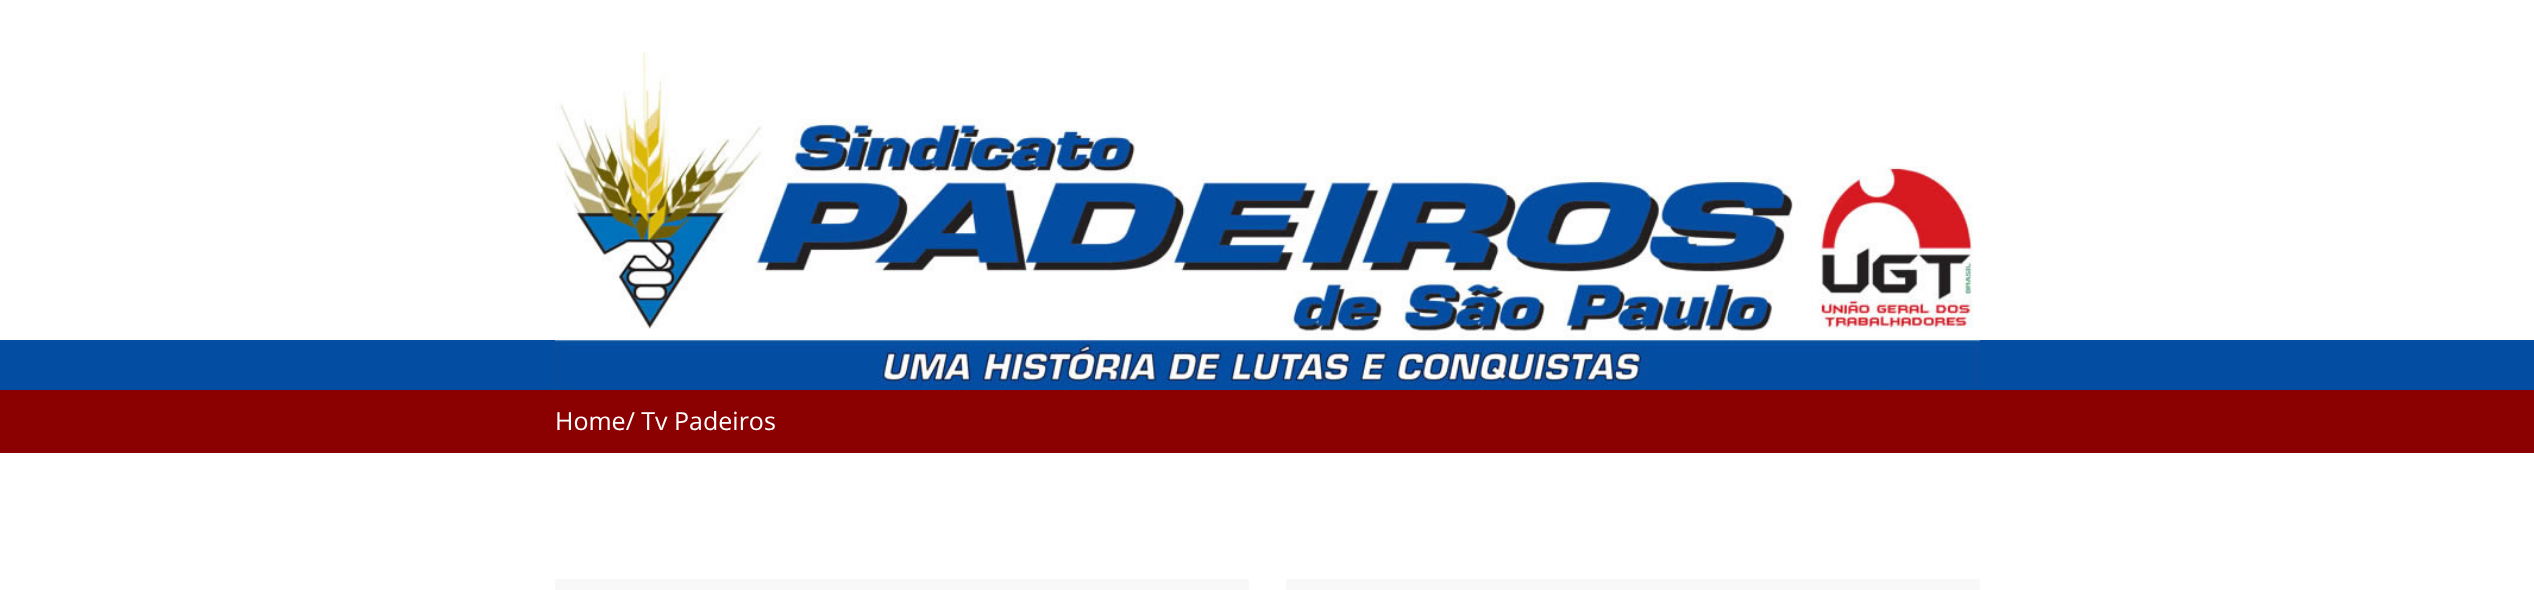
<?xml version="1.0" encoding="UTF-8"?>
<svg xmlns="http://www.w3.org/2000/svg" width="2534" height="590">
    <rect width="100%" height="100%" fill="#FFFFFF"/>
    <rect x="0" y="340" width="2534" height="50" fill="#034EA2"/>
    <image x="555" y="52" width="1425" height="338" href="img_01.png"/>
    <rect x="0" y="390" width="2534" height="63" fill="#8B0000"/>
    <text x="555" y="430" font-family="Open Sans" font-size="25" fill="#FFFFFF">Home/ Tv Padeiros</text>
    <rect x="555" y="579" width="694" height="11" fill="#F8F8F8"/>
    <rect x="1286" y="579" width="694" height="11" fill="#F8F8F8"/>
</svg>
